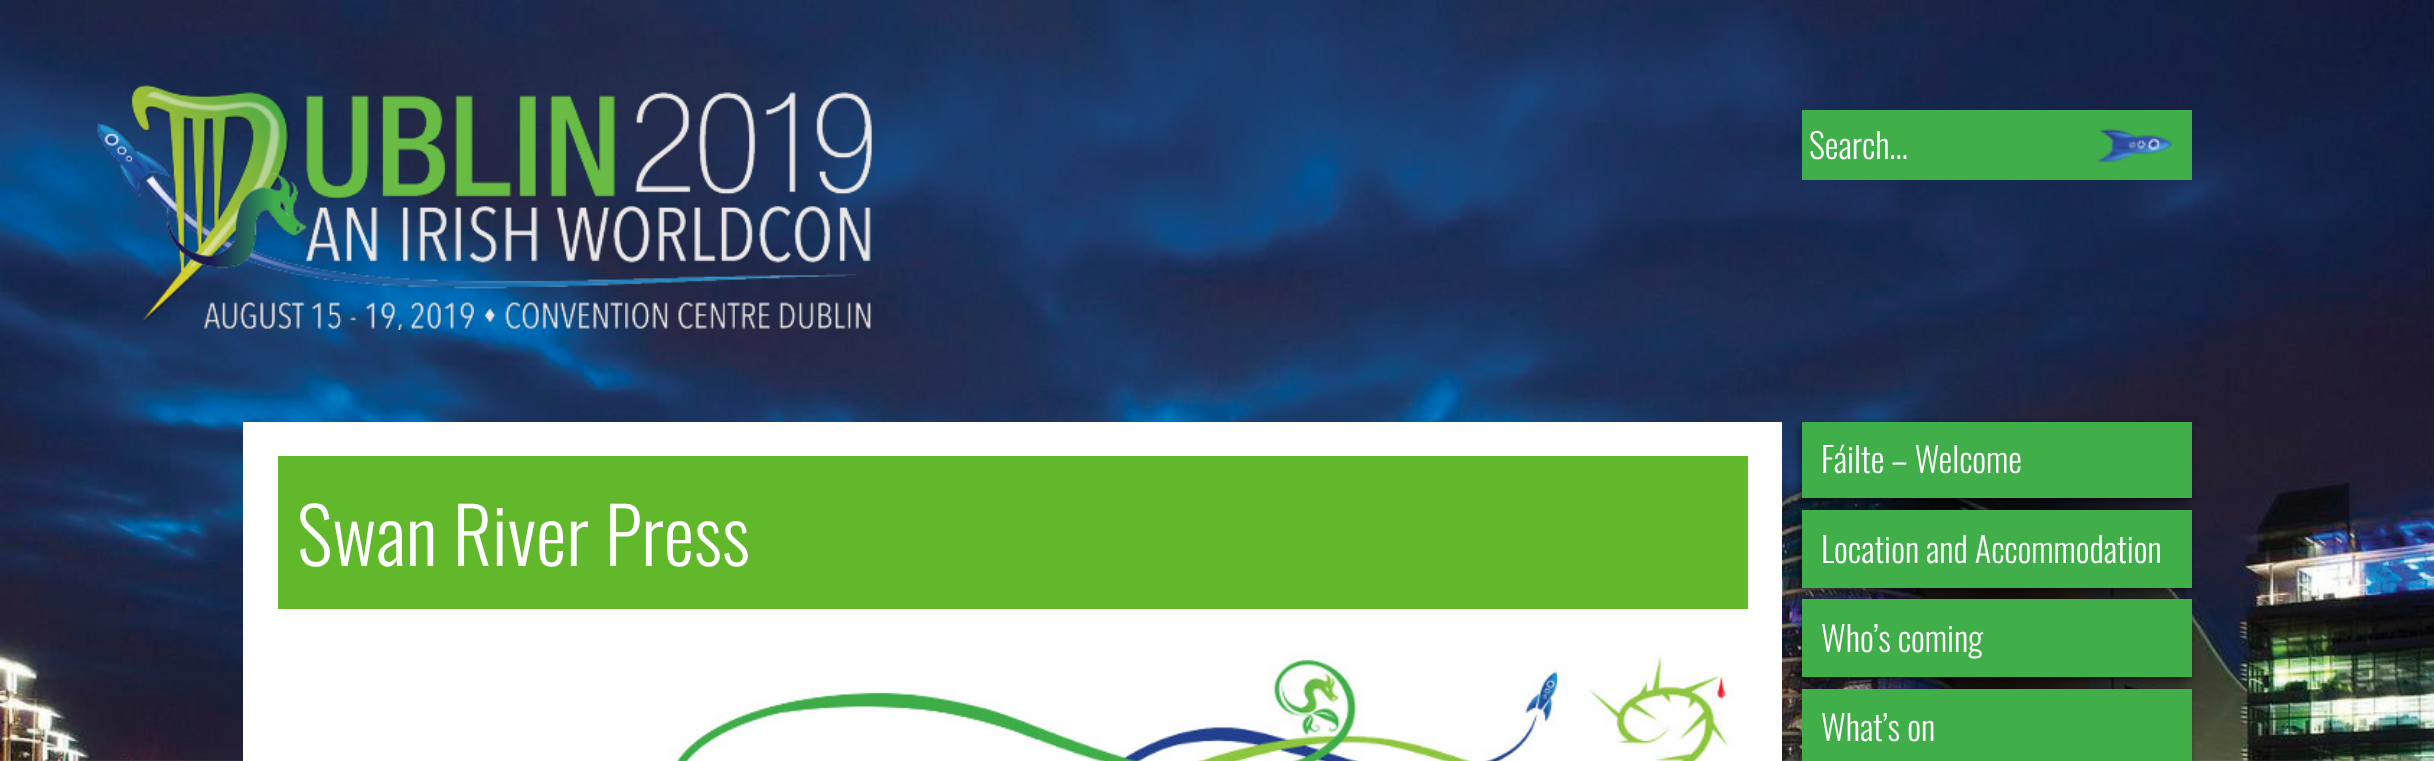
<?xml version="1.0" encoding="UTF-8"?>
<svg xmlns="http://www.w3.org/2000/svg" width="2434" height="761">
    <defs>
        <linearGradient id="g1" gradientUnits="userSpaceOnUse" x1="1802" y1="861" x2="2192" y2="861"><stop offset="0" stop-color="#000000" stop-opacity="0"/><stop offset="0.33" stop-color="#000000" stop-opacity="0.65"/><stop offset="0.5" stop-color="#000000" stop-opacity="0.76"/><stop offset="0.64" stop-color="#000000" stop-opacity="0.65"/><stop offset="1" stop-color="#000000" stop-opacity="0"/></linearGradient>
        <filter id="blur1" x="-50%" y="-200%" width="200%" height="500%"><feGaussianBlur stdDeviation="4.5"/></filter>
    </defs>
    <rect width="100%" height="100%" fill="#FFFFFF"/>
    <image x="0" y="0" width="2434" height="761" href="img_01.png"/>
    <image x="97" y="85" width="776" height="245" href="img_02.png"/>
    <rect x="1802" y="110" width="390" height="70" fill="#40AE49"/>
    <text x="1809" y="159" font-family="Oswald" font-size="34.5" font-weight="300" fill="#FFFFFF">Search…</text>
    <image x="2097" y="129" width="75" height="34" href="img_03.png"/>
    <rect x="243" y="422" width="1539" height="339" fill="#FFFFFF"/>
    <rect x="278" y="456" width="1470" height="153" fill="#62B82B"/>
    <text x="297" y="566" font-family="Oswald" font-size="76.75" font-weight="300" fill="#FFFFFF">Swan River Press</text>
    <image x="668" y="652" width="1067" height="109" href="img_04.png"/>
    <rect x="1806" y="498" width="380" height="191" fill="url(#g1)"/>
    <rect x="1799" y="425" width="390" height="76" fill="#000000" fill-opacity="0.5" filter="url(#blur1)"/>
    <rect x="1802" y="422" width="390" height="76" fill="#40AE49"/>
    <text x="1821" y="473" font-family="Oswald" font-size="34.5" font-weight="300" fill="#FFFFFF">Fáilte – Welcome</text>
    <rect x="1799" y="513" width="390" height="78" fill="#000000" fill-opacity="0.5" filter="url(#blur1)"/>
    <rect x="1802" y="510" width="390" height="78" fill="#40AE49"/>
    <text x="1821" y="563" font-family="Oswald" font-size="34.5" font-weight="300" fill="#FFFFFF">Location and Accommodation</text>
    <rect x="1799" y="602" width="390" height="78" fill="#000000" fill-opacity="0.5" filter="url(#blur1)"/>
    <rect x="1802" y="599" width="390" height="78" fill="#40AE49"/>
    <text x="1821" y="652" font-family="Oswald" font-size="34.5" font-weight="300" fill="#FFFFFF">Who’s coming</text>
    <rect x="1799" y="692" width="390" height="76" fill="#000000" fill-opacity="0.5" filter="url(#blur1)"/>
    <rect x="1802" y="689" width="390" height="72" fill="#40AE49"/>
    <text x="1821" y="741" font-family="Oswald" font-size="34.5" font-weight="300" fill="#FFFFFF">What’s on</text>
</svg>
